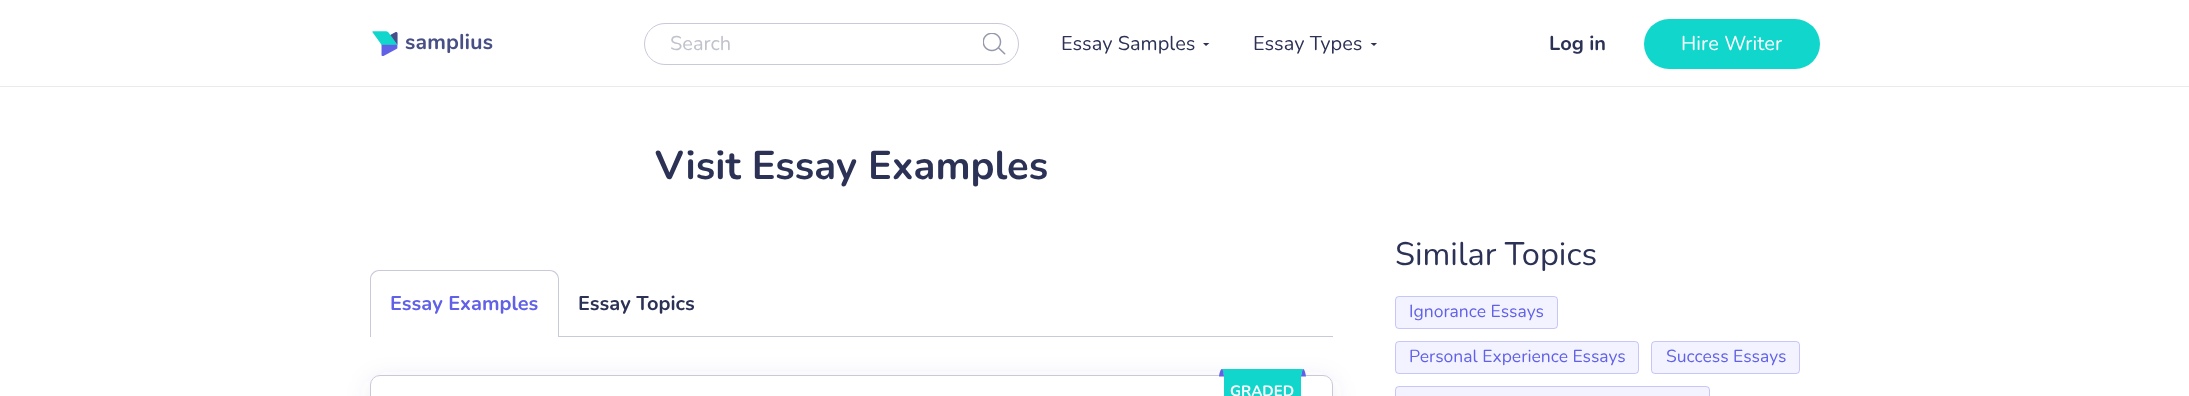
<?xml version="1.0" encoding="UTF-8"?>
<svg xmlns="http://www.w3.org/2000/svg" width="2189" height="396">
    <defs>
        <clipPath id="clip1"><rect x="1203" y="43" width="7" height="4"/></clipPath>
        <clipPath id="clip2"><rect x="1370" y="43" width="8" height="4"/></clipPath>
        <filter id="blur1" x="-50%" y="-200%" width="200%" height="500%"><feGaussianBlur stdDeviation="12.5"/></filter>
    </defs>
    <rect width="100%" height="100%" fill="#FFFFFF"/>
    <rect x="0" y="86" width="2189" height="1" fill="#EAEBEE"/>
    <image x="372" y="31" width="121" height="25" href="img_01.png"/>
    <rect x="644.5" y="23.5" width="374" height="41" rx="20.5" fill="none" stroke="#C8CADA"/>
    <text x="670" y="50" font-family="Nunito" font-size="20" fill="#C0C2CC">Search</text>
    <image x="983" y="33" width="23" height="22" href="img_02.png"/>
    <text x="1061" y="50" font-family="Nunito" font-size="20" fill="#2C3256">Essay Samples</text>
    <g clip-path="url(#clip1)">
        <path d="M 1206 46 L 1210 42.5 H 1202.5 Z" fill="#2C3256" fill-rule="evenodd"/>
    </g>
    <text x="1253" y="50" font-family="Nunito" font-size="20" fill="#2C3256">Essay Types</text>
    <g clip-path="url(#clip2)">
        <path d="M 1374 46 L 1377.5 42.5 H 1370 Z" fill="#2C3256" fill-rule="evenodd"/>
    </g>
    <text x="1549" y="50" font-family="Nunito" font-size="20" font-weight="700" fill="#2C3256">Log in</text>
    <rect x="1644" y="19" width="176" height="50" rx="25" fill="#11D6CC"/>
    <text x="1681" y="50" font-family="Nunito" font-size="20" letter-spacing="0.1" fill="#FFFFFF">Hire Writer</text>
    <text x="655" y="179" font-family="Nunito" font-size="40" font-weight="700" fill="#2C3256">Visit Essay Examples</text>
    <rect x="370" y="336" width="963" height="1" fill="#C8CADA"/>
    <path d="M 379 270 H 550 C 555 270 559 274 559 279 V 336 H 370 V 279 C 370 274 374 270 379 270 Z M 379 271 H 550 C 554 271 558 275 558 279 V 336 H 371 V 279 C 371 275 375 271 379 271 Z" fill="#C8CADA" fill-rule="evenodd"/>
    <text x="390" y="310" font-family="Nunito" font-size="20" font-weight="700" fill="#6161E8">Essay Examples</text>
    <rect x="371" y="336" width="187" height="1" fill="#FFFFFF"/>
    <text x="578" y="310" font-family="Nunito" font-size="20" font-weight="700" fill="#2C3256">Essay Topics</text>
    <rect x="370" y="380" width="963" height="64" rx="10" fill="#474F85" fill-opacity="0.1" filter="url(#blur1)"/>
    <rect x="370.5" y="375.5" width="962" height="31" rx="9.5" fill="#FFFFFF" stroke="#C8CADA"/>
    <path d="M 1303 369 C 1304 368.5 1305.5 372 1306 376.5 H 1301 C 1301 375.5 1302 369 1303 369 Z" fill="#6161E8"/>
    <path d="M 1303 369 H 1222 C 1223 372 1224 375 1224 378 V 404 L 1262 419 L 1301 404 V 378 C 1301 375 1302 372 1303 369 Z" fill="#11D6CC"/>
    <path d="M 1222 369 C 1221 368.5 1219.5 372 1219 376.5 H 1224 C 1224 375.5 1223 369 1222 369 Z" fill="#6161E8"/>
    <text x="1230" y="396" font-family="Nunito" font-size="15" font-weight="700" fill="#FFFFFF">GRADED</text>
    <text x="1395" y="265" font-family="Nunito" font-size="32.5" fill="#2C3256">Similar Topics</text>
    <rect x="1395" y="296" width="163" height="33" rx="4" fill="#F3F3FF"/>
    <rect x="1395.5" y="296.5" width="162" height="32" rx="3.5" fill="none" stroke="#6161E8" stroke-opacity="0.3"/>
    <text x="1409" y="317" font-family="Nunito" font-size="17.5" fill="#6161E8">Ignorance Essays</text>
    <rect x="1395" y="341" width="244" height="33" rx="4" fill="#F3F3FF"/>
    <rect x="1395.5" y="341.5" width="243" height="32" rx="3.5" fill="none" stroke="#6161E8" stroke-opacity="0.3"/>
    <text x="1409" y="362" font-family="Nunito" font-size="17.5" fill="#6161E8">Personal Experience Essays</text>
    <rect x="1651" y="341" width="149" height="33" rx="4" fill="#F3F3FF"/>
    <rect x="1651.5" y="341.5" width="148" height="32" rx="3.5" fill="none" stroke="#6161E8" stroke-opacity="0.3"/>
    <text x="1666" y="362" font-family="Nunito" font-size="17.5" fill="#6161E8">Success Essays</text>
    <rect x="1395" y="386" width="315" height="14" rx="4" fill="#F3F3FF"/>
    <rect x="1395.5" y="386.5" width="314" height="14" rx="3.5" fill="none" stroke="#6161E8" stroke-opacity="0.3"/>
</svg>
